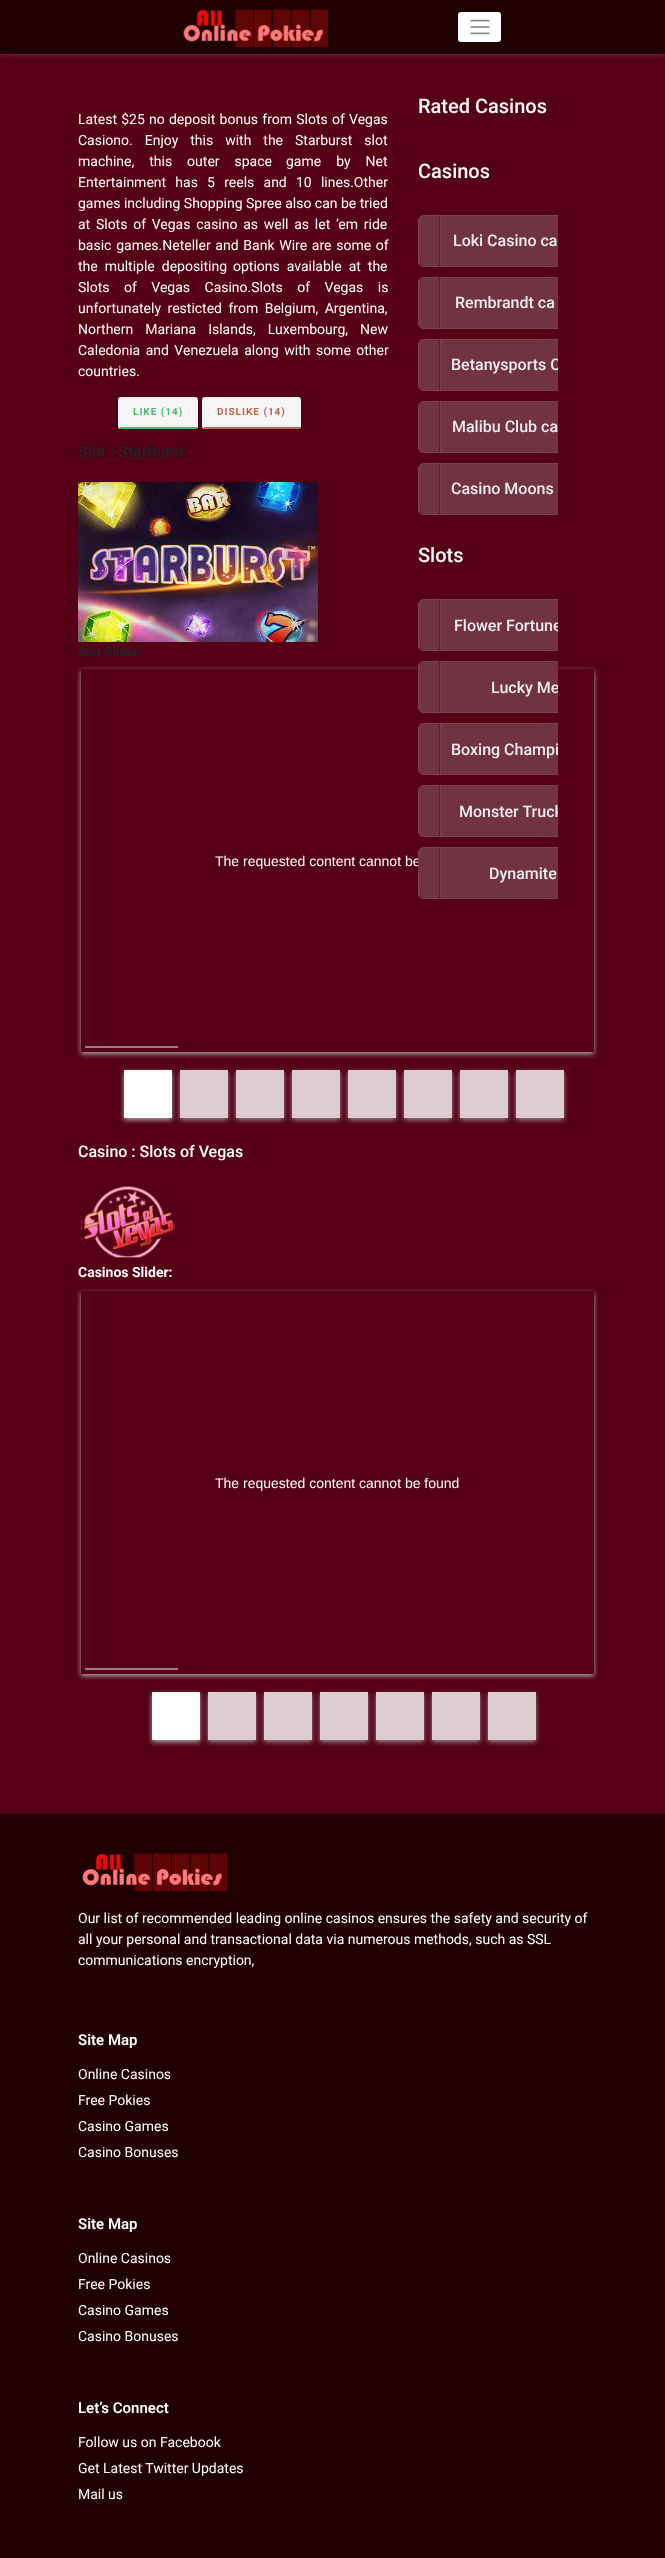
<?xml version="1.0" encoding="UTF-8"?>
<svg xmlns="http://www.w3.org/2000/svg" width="665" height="2558">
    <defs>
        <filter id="blur1" x="-50%" y="-200%" width="200%" height="500%"><feGaussianBlur stdDeviation="3"/></filter>
        <clipPath id="clip1"><path d="M 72 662 H 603 V 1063 H 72 Z M 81 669 H 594 V 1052 H 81 Z" clip-rule="evenodd"/></clipPath>
        <filter id="blur2" x="-50%" y="-200%" width="200%" height="500%"><feGaussianBlur stdDeviation="2.5"/></filter>
        <clipPath id="clip2"><path d="M 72 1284 H 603 V 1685 H 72 Z M 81 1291 H 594 V 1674 H 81 Z" clip-rule="evenodd"/></clipPath>
        <clipPath id="clip3"><rect x="451" y="355" width="107" height="20"/></clipPath>
        <clipPath id="clip4"><rect x="451" y="616" width="107" height="19"/></clipPath>
        <clipPath id="clip5"><rect x="451" y="678" width="107" height="19"/></clipPath>
        <clipPath id="clip6"><rect x="451" y="802" width="107" height="19"/></clipPath>
    </defs>
    <rect width="100%" height="100%" fill="#560017"/>
    <rect x="0" y="-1" width="665" height="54" fill="#FFFFFF" fill-opacity="0.3" filter="url(#blur1)"/>
    <rect x="0" y="0" width="665" height="54" fill="#200101"/>
    <image x="183" y="9" width="146" height="39" href="img_01.png"/>
    <rect x="458" y="12" width="43" height="30" rx="3" fill="#FFFFFF"/>
    <image x="470" y="19" width="20" height="16" href="img_02.png"/>
    <text font-family="Roboto" font-size="14" fill="#FFFFFF">
        <tspan x="78" y="124" word-spacing="0.75">Latest $25 no deposit bonus from Slots of Vegas</tspan>
        <tspan x="78" y="145" word-spacing="8.5">Casiono. Enjoy this with the Starburst slot</tspan>
        <tspan x="78" y="166" word-spacing="11.5">machine, this outer space</tspan>
    </text>
    <text x="286" y="166" word-spacing="11.5" font-family="Roboto" font-size="14" fill="#FFFFFF">game by Net</text>
    <text font-family="Roboto" font-size="14" fill="#FFFFFF">
        <tspan x="78" y="187" word-spacing="5.75">Entertainment has 5 reels and 10 lines.Other</tspan>
        <tspan x="78" y="208">games including Shopping Spree also can be tried</tspan>
        <tspan x="78" y="229" word-spacing="2.25">at Slots of Vegas casino as well as let ’em ride</tspan>
        <tspan x="78" y="250" word-spacing="1.25">basic games.Neteller and Bank Wire are some of</tspan>
        <tspan x="78" y="271" word-spacing="3.5">the multiple depositing</tspan>
    </text>
    <text x="233" y="271" word-spacing="3.5" font-family="Roboto" font-size="14" fill="#FFFFFF">options available at the</text>
    <text font-family="Roboto" font-size="14" fill="#FFFFFF">
        <tspan x="78" y="292" word-spacing="11">Slots of Vegas Casino.Slots of Vegas is</tspan>
        <tspan x="78" y="313" word-spacing="3">unfortunately resticted from Belgium, Argentina,</tspan>
        <tspan x="78" y="334" word-spacing="8.5">Northern Mariana Islands, Luxembourg, New</tspan>
        <tspan x="78" y="355" word-spacing="2">Caledonia and Venezuela along with some other</tspan>
        <tspan x="78" y="376">countries.</tspan>
    </text>
    <rect x="118" y="397" width="80" height="32" rx="3" fill="#F5F5F5"/>
    <rect x="120" y="427" width="77" height="2" fill="#47BA72"/>
    <text x="133" y="415" font-family="Roboto" font-size="10" font-weight="700" letter-spacing="1" fill="#47BA72">LIKE (14)</text>
    <rect x="202" y="397" width="99" height="32" rx="3" fill="#F5F5F5"/>
    <rect x="204" y="427" width="96" height="2" fill="#BA6547"/>
    <text x="217" y="415" font-family="Roboto" font-size="10" font-weight="700" letter-spacing="1" fill="#BA6547">DISLIKE (14)</text>
    <text x="78" y="457" font-family="Roboto" font-size="16" font-weight="500" fill="#212529">Slot : Starburst</text>
    <image x="78" y="482" width="240" height="160" href="img_03.png"/>
    <text x="78" y="656" font-family="Roboto" font-size="13" font-weight="700" fill="#212529">Slot Slider:</text>
    <g clip-path="url(#clip1)">
        <rect x="81" y="671" width="513" height="383" fill="#AAAAAA" filter="url(#blur2)"/>
    </g>
    <text x="215" y="866" font-family="Liberation Sans" font-size="14" fill="#FFFFFF">The requested content cannot be</text>
    <rect x="85" y="1046" width="93" height="2" fill="#9D7A84"/>
    <rect x="124" y="1072" width="48" height="48" fill="#AAAAAA" filter="url(#blur2)"/>
    <rect x="124" y="1070" width="48" height="48" fill="#FFFFFF"/>
    <rect x="180" y="1072" width="48" height="48" fill="#AAAAAA" fill-opacity="0.8" filter="url(#blur2)"/>
    <rect x="180" y="1070" width="48" height="48" fill="#DDCCD1"/>
    <rect x="236" y="1072" width="48" height="48" fill="#AAAAAA" fill-opacity="0.8" filter="url(#blur2)"/>
    <rect x="236" y="1070" width="48" height="48" fill="#DDCCD1"/>
    <rect x="292" y="1072" width="48" height="48" fill="#AAAAAA" fill-opacity="0.8" filter="url(#blur2)"/>
    <rect x="292" y="1070" width="48" height="48" fill="#DDCCD1"/>
    <rect x="348" y="1072" width="48" height="48" fill="#AAAAAA" fill-opacity="0.8" filter="url(#blur2)"/>
    <rect x="348" y="1070" width="48" height="48" fill="#DDCCD1"/>
    <rect x="404" y="1072" width="48" height="48" fill="#AAAAAA" fill-opacity="0.8" filter="url(#blur2)"/>
    <rect x="404" y="1070" width="48" height="48" fill="#DDCCD1"/>
    <rect x="460" y="1072" width="48" height="48" fill="#AAAAAA" fill-opacity="0.8" filter="url(#blur2)"/>
    <rect x="460" y="1070" width="48" height="48" fill="#DDCCD1"/>
    <rect x="516" y="1072" width="48" height="48" fill="#AAAAAA" fill-opacity="0.8" filter="url(#blur2)"/>
    <rect x="516" y="1070" width="48" height="48" fill="#DDCCD1"/>
    <text x="78" y="1157" font-family="Roboto" font-size="16" font-weight="500" fill="#FFFFFF">Casino : Slots of Vegas</text>
    <image x="81" y="1186" width="94" height="72" href="img_04.png"/>
    <text x="78" y="1277" font-family="Roboto" font-size="14" font-weight="700" fill="#FFFFFF">Casinos Slider:</text>
    <g clip-path="url(#clip2)">
        <rect x="81" y="1293" width="513" height="383" fill="#AAAAAA" filter="url(#blur2)"/>
    </g>
    <text x="215" y="1488" font-family="Liberation Sans" font-size="14" fill="#FFFFFF">The requested content cannot be found</text>
    <rect x="85" y="1668" width="93" height="2" fill="#9D7A84"/>
    <rect x="152" y="1694" width="48" height="48" fill="#AAAAAA" filter="url(#blur2)"/>
    <rect x="152" y="1692" width="48" height="48" fill="#FFFFFF"/>
    <rect x="208" y="1694" width="48" height="48" fill="#AAAAAA" fill-opacity="0.8" filter="url(#blur2)"/>
    <rect x="208" y="1692" width="48" height="48" fill="#DDCCD1"/>
    <rect x="264" y="1694" width="48" height="48" fill="#AAAAAA" fill-opacity="0.8" filter="url(#blur2)"/>
    <rect x="264" y="1692" width="48" height="48" fill="#DDCCD1"/>
    <rect x="320" y="1694" width="48" height="48" fill="#AAAAAA" fill-opacity="0.8" filter="url(#blur2)"/>
    <rect x="320" y="1692" width="48" height="48" fill="#DDCCD1"/>
    <rect x="376" y="1694" width="48" height="48" fill="#AAAAAA" fill-opacity="0.8" filter="url(#blur2)"/>
    <rect x="376" y="1692" width="48" height="48" fill="#DDCCD1"/>
    <rect x="432" y="1694" width="48" height="48" fill="#AAAAAA" fill-opacity="0.8" filter="url(#blur2)"/>
    <rect x="432" y="1692" width="48" height="48" fill="#DDCCD1"/>
    <rect x="488" y="1694" width="48" height="48" fill="#AAAAAA" fill-opacity="0.8" filter="url(#blur2)"/>
    <rect x="488" y="1692" width="48" height="48" fill="#DDCCD1"/>
    <text x="418" y="113" font-family="Roboto" font-size="20" font-weight="500" fill="#FFFFFF">Rated Casinos</text>
    <text x="418" y="178" font-family="Roboto" font-size="20" font-weight="500" fill="#FFFFFF">Casinos</text>
    <path d="M 424 215 H 440 V 267 H 424 C 420.5 267 418 264.5 418 261 V 221 C 418 217.5 420.5 215 424 215 Z" fill="#713344"/>
    <path d="M 424 215 C 422.5 215 421 216 420 217 L 420.5 217.5 C 421 216.5 422.5 216 424 216 H 439 L 440 215 Z" fill="#7D4252"/>
    <path d="M 440 215 L 439 216 V 266 L 440 267 Z" fill="#541C2C"/>
    <path d="M 440 267 L 439 266 H 424 C 422.5 266 421 265.5 420.5 264.5 L 420 265 C 421 266 422.5 267 424 267 Z M 418 221 V 261 C 418 262 419 264 420 265 C 420 264 419 262 419 261 V 221 C 419 220 420 218 420 217 C 419 218 418 220 418 221 Z" fill="#7D4252"/>
    <rect x="441" y="216" width="117" height="50" fill="#713344"/>
    <rect x="440" y="215" width="118" height="1" fill="#7D4252"/>
    <rect x="440" y="266" width="118" height="1" fill="#7D4252"/>
    <rect x="440" y="215" width="1" height="52" fill="#7D4252"/>
    <text x="453" y="246" font-family="Roboto" font-size="16" font-weight="500" fill="#ECECEC">Loki Casino ca</text>
    <path d="M 424 277 H 440 V 329 H 424 C 420.5 329 418 326.5 418 323 V 283 C 418 279.5 420.5 277 424 277 Z" fill="#713344"/>
    <path d="M 424 277 C 422.5 277 421 278 420 279 L 420.5 279.5 C 421 278.5 422.5 278 424 278 H 439 L 440 277 Z" fill="#7D4252"/>
    <path d="M 440 277 L 439 278 V 328 L 440 329 Z" fill="#541C2C"/>
    <path d="M 440 329 L 439 328 H 424 C 422.5 328 421 327.5 420.5 326.5 L 420 327 C 421 328 422.5 329 424 329 Z M 418 283 V 323 C 418 324 419 326 420 327 C 420 326 419 324 419 323 V 283 C 419 282 420 280 420 279 C 419 280 418 282 418 283 Z" fill="#7D4252"/>
    <rect x="441" y="278" width="117" height="50" fill="#713344"/>
    <rect x="440" y="277" width="118" height="1" fill="#7D4252"/>
    <rect x="440" y="328" width="118" height="1" fill="#7D4252"/>
    <rect x="440" y="277" width="1" height="52" fill="#7D4252"/>
    <text x="455" y="308" font-family="Roboto" font-size="16" font-weight="500" fill="#ECECEC">Rembrandt ca</text>
    <path d="M 424 339 H 440 V 391 H 424 C 420.5 391 418 388.5 418 385 V 345 C 418 341.5 420.5 339 424 339 Z" fill="#713344"/>
    <path d="M 424 339 C 422.5 339 421 340 420 341 L 420.5 341.5 C 421 340.5 422.5 340 424 340 H 439 L 440 339 Z" fill="#7D4252"/>
    <path d="M 440 339 L 439 340 V 390 L 440 391 Z" fill="#541C2C"/>
    <path d="M 440 391 L 439 390 H 424 C 422.5 390 421 389.5 420.5 388.5 L 420 389 C 421 390 422.5 391 424 391 Z M 418 345 V 385 C 418 386 419 388 420 389 C 420 388 419 386 419 385 V 345 C 419 344 420 342 420 341 C 419 342 418 344 418 345 Z" fill="#7D4252"/>
    <rect x="441" y="340" width="117" height="50" fill="#713344"/>
    <rect x="440" y="339" width="118" height="1" fill="#7D4252"/>
    <rect x="440" y="390" width="118" height="1" fill="#7D4252"/>
    <rect x="440" y="339" width="1" height="52" fill="#7D4252"/>
    <g clip-path="url(#clip3)">
        <text x="451" y="370" font-family="Roboto" font-size="16" font-weight="500" fill="#ECECEC">Betanysports C</text>
    </g>
    <path d="M 424 401 H 440 V 453 H 424 C 420.5 453 418 450.5 418 447 V 407 C 418 403.5 420.5 401 424 401 Z" fill="#713344"/>
    <path d="M 424 401 C 422.5 401 421 402 420 403 L 420.5 403.5 C 421 402.5 422.5 402 424 402 H 439 L 440 401 Z" fill="#7D4252"/>
    <path d="M 440 401 L 439 402 V 452 L 440 453 Z" fill="#541C2C"/>
    <path d="M 440 453 L 439 452 H 424 C 422.5 452 421 451.5 420.5 450.5 L 420 451 C 421 452 422.5 453 424 453 Z M 418 407 V 447 C 418 448 419 450 420 451 C 420 450 419 448 419 447 V 407 C 419 406 420 404 420 403 C 419 404 418 406 418 407 Z" fill="#7D4252"/>
    <rect x="441" y="402" width="117" height="50" fill="#713344"/>
    <rect x="440" y="401" width="118" height="1" fill="#7D4252"/>
    <rect x="440" y="452" width="118" height="1" fill="#7D4252"/>
    <rect x="440" y="401" width="1" height="52" fill="#7D4252"/>
    <text x="452" y="432" font-family="Roboto" font-size="16" font-weight="500" fill="#ECECEC">Malibu Club ca</text>
    <path d="M 424 463 H 440 V 515 H 424 C 420.5 515 418 512.5 418 509 V 469 C 418 465.5 420.5 463 424 463 Z" fill="#713344"/>
    <path d="M 424 463 C 422.5 463 421 464 420 465 L 420.5 465.5 C 421 464.5 422.5 464 424 464 H 439 L 440 463 Z" fill="#7D4252"/>
    <path d="M 440 463 L 439 464 V 514 L 440 515 Z" fill="#541C2C"/>
    <path d="M 440 515 L 439 514 H 424 C 422.5 514 421 513.5 420.5 512.5 L 420 513 C 421 514 422.5 515 424 515 Z M 418 469 V 509 C 418 510 419 512 420 513 C 420 512 419 510 419 509 V 469 C 419 468 420 466 420 465 C 419 466 418 468 418 469 Z" fill="#7D4252"/>
    <rect x="441" y="464" width="117" height="50" fill="#713344"/>
    <rect x="440" y="463" width="118" height="1" fill="#7D4252"/>
    <rect x="440" y="514" width="118" height="1" fill="#7D4252"/>
    <rect x="440" y="463" width="1" height="52" fill="#7D4252"/>
    <text x="451" y="494" font-family="Roboto" font-size="16" font-weight="500" fill="#ECECEC">Casino Moons</text>
    <text x="418" y="562" font-family="Roboto" font-size="20" font-weight="500" fill="#FFFFFF">Slots</text>
    <path d="M 424 599 H 440 V 651 H 424 C 420.5 651 418 648.5 418 645 V 605 C 418 601.5 420.5 599 424 599 Z" fill="#713344"/>
    <path d="M 424 599 C 422.5 599 421 600 420 601 L 420.5 601.5 C 421 600.5 422.5 600 424 600 H 439 L 440 599 Z" fill="#7D4252"/>
    <path d="M 440 599 L 439 600 V 650 L 440 651 Z" fill="#541C2C"/>
    <path d="M 440 651 L 439 650 H 424 C 422.5 650 421 649.5 420.5 648.5 L 420 649 C 421 650 422.5 651 424 651 Z M 418 605 V 645 C 418 646 419 648 420 649 C 420 648 419 646 419 645 V 605 C 419 604 420 602 420 601 C 419 602 418 604 418 605 Z" fill="#7D4252"/>
    <rect x="441" y="600" width="117" height="50" fill="#713344"/>
    <rect x="440" y="599" width="118" height="1" fill="#7D4252"/>
    <rect x="440" y="650" width="118" height="1" fill="#7D4252"/>
    <rect x="440" y="599" width="1" height="52" fill="#7D4252"/>
    <g clip-path="url(#clip4)">
        <text x="454" y="631" font-family="Roboto" font-size="16" font-weight="500" fill="#ECECEC">Flower Fortune</text>
    </g>
    <path d="M 424 661 H 440 V 713 H 424 C 420.5 713 418 710.5 418 707 V 667 C 418 663.5 420.5 661 424 661 Z" fill="#713344"/>
    <path d="M 424 661 C 422.5 661 421 662 420 663 L 420.5 663.5 C 421 662.5 422.5 662 424 662 H 439 L 440 661 Z" fill="#7D4252"/>
    <path d="M 440 661 L 439 662 V 712 L 440 713 Z" fill="#541C2C"/>
    <path d="M 440 713 L 439 712 H 424 C 422.5 712 421 711.5 420.5 710.5 L 420 711 C 421 712 422.5 713 424 713 Z M 418 667 V 707 C 418 708 419 710 420 711 C 420 710 419 708 419 707 V 667 C 419 666 420 664 420 663 C 419 664 418 666 418 667 Z" fill="#7D4252"/>
    <rect x="441" y="662" width="117" height="50" fill="#713344"/>
    <rect x="440" y="661" width="118" height="1" fill="#7D4252"/>
    <rect x="440" y="712" width="118" height="1" fill="#7D4252"/>
    <rect x="440" y="661" width="1" height="52" fill="#7D4252"/>
    <g clip-path="url(#clip5)">
        <text x="491" y="693" font-family="Roboto" font-size="16" font-weight="500" fill="#ECECEC">Lucky Me</text>
    </g>
    <path d="M 424 723 H 440 V 775 H 424 C 420.5 775 418 772.5 418 769 V 729 C 418 725.5 420.5 723 424 723 Z" fill="#713344"/>
    <path d="M 424 723 C 422.5 723 421 724 420 725 L 420.5 725.5 C 421 724.5 422.5 724 424 724 H 439 L 440 723 Z" fill="#7D4252"/>
    <path d="M 440 723 L 439 724 V 774 L 440 775 Z" fill="#541C2C"/>
    <path d="M 440 775 L 439 774 H 424 C 422.5 774 421 773.5 420.5 772.5 L 420 773 C 421 774 422.5 775 424 775 Z M 418 729 V 769 C 418 770 419 772 420 773 C 420 772 419 770 419 769 V 729 C 419 728 420 726 420 725 C 419 726 418 728 418 729 Z" fill="#7D4252"/>
    <rect x="441" y="724" width="117" height="50" fill="#713344"/>
    <rect x="440" y="723" width="118" height="1" fill="#7D4252"/>
    <rect x="440" y="774" width="118" height="1" fill="#7D4252"/>
    <rect x="440" y="723" width="1" height="52" fill="#7D4252"/>
    <text x="451" y="755" font-family="Roboto" font-size="16" font-weight="500" fill="#ECECEC">Boxing Champi</text>
    <path d="M 424 785 H 440 V 837 H 424 C 420.5 837 418 834.5 418 831 V 791 C 418 787.5 420.5 785 424 785 Z" fill="#713344"/>
    <path d="M 424 785 C 422.5 785 421 786 420 787 L 420.5 787.5 C 421 786.5 422.5 786 424 786 H 439 L 440 785 Z" fill="#7D4252"/>
    <path d="M 440 785 L 439 786 V 836 L 440 837 Z" fill="#541C2C"/>
    <path d="M 440 837 L 439 836 H 424 C 422.5 836 421 835.5 420.5 834.5 L 420 835 C 421 836 422.5 837 424 837 Z M 418 791 V 831 C 418 832 419 834 420 835 C 420 834 419 832 419 831 V 791 C 419 790 420 788 420 787 C 419 788 418 790 418 791 Z" fill="#7D4252"/>
    <rect x="441" y="786" width="117" height="50" fill="#713344"/>
    <rect x="440" y="785" width="118" height="1" fill="#7D4252"/>
    <rect x="440" y="836" width="118" height="1" fill="#7D4252"/>
    <rect x="440" y="785" width="1" height="52" fill="#7D4252"/>
    <g clip-path="url(#clip6)">
        <text x="459" y="817" font-family="Roboto" font-size="16" font-weight="500" fill="#ECECEC">Monster Truck</text>
    </g>
    <path d="M 424 847 H 440 V 899 H 424 C 420.5 899 418 896.5 418 893 V 853 C 418 849.5 420.5 847 424 847 Z" fill="#713344"/>
    <path d="M 424 847 C 422.5 847 421 848 420 849 L 420.5 849.5 C 421 848.5 422.5 848 424 848 H 439 L 440 847 Z" fill="#7D4252"/>
    <path d="M 440 847 L 439 848 V 898 L 440 899 Z" fill="#541C2C"/>
    <path d="M 440 899 L 439 898 H 424 C 422.5 898 421 897.5 420.5 896.5 L 420 897 C 421 898 422.5 899 424 899 Z M 418 853 V 893 C 418 894 419 896 420 897 C 420 896 419 894 419 893 V 853 C 419 852 420 850 420 849 C 419 850 418 852 418 853 Z" fill="#7D4252"/>
    <rect x="441" y="848" width="117" height="50" fill="#713344"/>
    <rect x="440" y="847" width="118" height="1" fill="#7D4252"/>
    <rect x="440" y="898" width="118" height="1" fill="#7D4252"/>
    <rect x="440" y="847" width="1" height="52" fill="#7D4252"/>
    <text x="489" y="879" font-family="Roboto" font-size="16" font-weight="500" fill="#ECECEC">Dynamite</text>
    <rect x="0" y="1814" width="665" height="744" fill="#200101"/>
    <image x="82" y="1853" width="146" height="39" href="img_05.png"/>
    <text font-family="Roboto" font-size="14" fill="#FFFFFF">
        <tspan x="78" y="1923">Our list of recommended leading online casinos ensures the safety and security of</tspan>
        <tspan x="78" y="1944">all your personal and transactional data via numerous methods, such as SSL</tspan>
        <tspan x="78" y="1965">communications encryption,</tspan>
    </text>
    <text x="78" y="2045" font-family="Roboto" font-size="15" font-weight="600" fill="#FFFFFF">Site Map</text>
    <text font-family="Roboto" font-size="14" fill="#FFFFFF">
        <tspan x="78" y="2079">Online Casinos</tspan>
        <tspan x="78" y="2105">Free Pokies</tspan>
        <tspan x="78" y="2131">Casino Games</tspan>
        <tspan x="78" y="2157">Casino Bonuses</tspan>
    </text>
    <text x="78" y="2229" font-family="Roboto" font-size="15" font-weight="600" fill="#FFFFFF">Site Map</text>
    <text font-family="Roboto" font-size="14" fill="#FFFFFF">
        <tspan x="78" y="2263">Online Casinos</tspan>
        <tspan x="78" y="2289">Free Pokies</tspan>
        <tspan x="78" y="2315">Casino Games</tspan>
        <tspan x="78" y="2341">Casino Bonuses</tspan>
    </text>
    <text x="78" y="2413" font-family="Roboto" font-size="15" font-weight="600" fill="#FFFFFF">Let’s Connect</text>
    <text font-family="Roboto" font-size="14" fill="#FFFFFF">
        <tspan x="78" y="2447">Follow us on Facebook</tspan>
        <tspan x="78" y="2473">Get Latest Twitter Updates</tspan>
        <tspan x="78" y="2499">Mail us</tspan>
    </text>
</svg>
